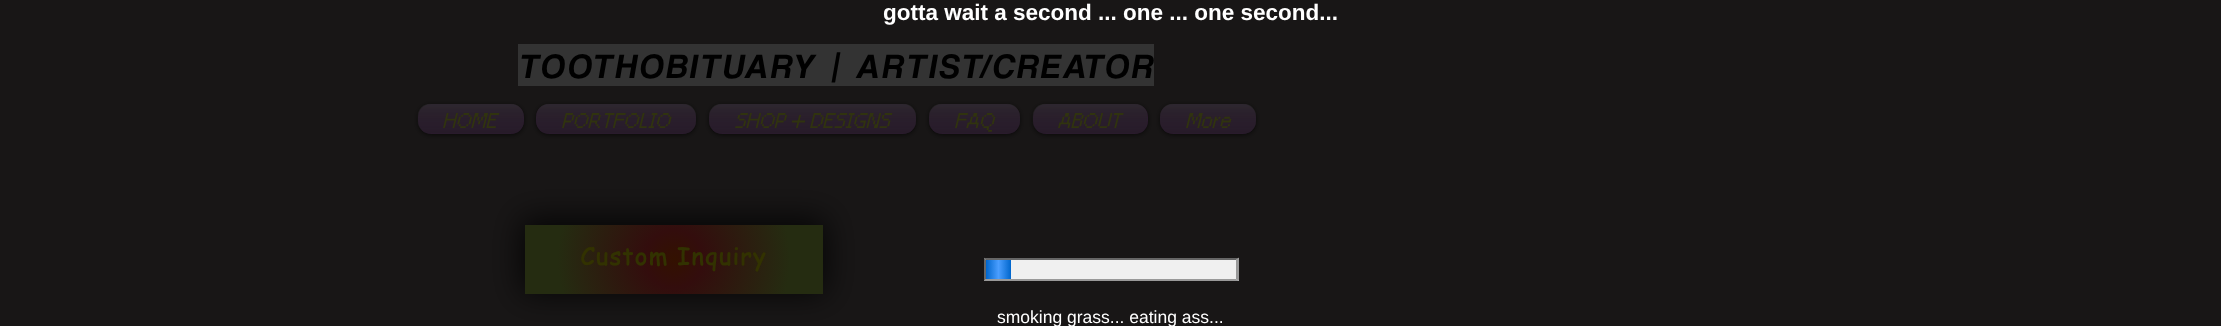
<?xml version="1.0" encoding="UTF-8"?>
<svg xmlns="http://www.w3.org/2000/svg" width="2221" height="326">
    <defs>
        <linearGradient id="g1" gradientUnits="userSpaceOnUse" x1="986" y1="269" x2="1011" y2="269"><stop offset="0" stop-color="#0066CC"/><stop offset="0.5" stop-color="#4A9EFF"/><stop offset="1" stop-color="#0066CC"/></linearGradient>
        <filter id="blur1" x="-50%" y="-200%" width="200%" height="500%"><feGaussianBlur stdDeviation="2.5"/></filter>
        <filter id="blur2" x="-50%" y="-200%" width="200%" height="500%"><feGaussianBlur stdDeviation="16"/></filter>
        <radialGradient id="g2" gradientUnits="userSpaceOnUse" cx="674" cy="259" r="153"><stop offset="0" stop-color="#331100"/><stop offset="0.19" stop-color="#330D0D"/><stop offset="0.76" stop-color="#252C11"/></radialGradient>
    </defs>
    <rect width="100%" height="100%" fill="#181616"/>
    <text x="883" y="20" font-family="Liberation Sans" font-size="22.5" font-weight="700" fill="#FFFFFF">gotta wait a second ... one ... one second...</text>
    <rect x="984" y="258" width="255" height="23" fill="#F0F0F0"/>
    <path d="M 984 258 H 1239 L 1236 260 H 986 Z" fill="#666666"/>
    <path d="M 1239 257.5 V 281 L 1236 279 V 260 Z" fill="#999999"/>
    <path d="M 1239 281 H 984 L 986 279 H 1236 Z" fill="#999999"/>
    <path d="M 984 281 V 257.5 L 986 260 V 279 Z" fill="#666666"/>
    <rect x="986" y="260" width="25" height="19" fill="url(#g1)"/>
    <text x="997" y="323" font-family="Liberation Sans" font-size="17.5" fill="#FFFFFF">smoking grass... eating ass...</text>
    <rect x="518" y="44" width="636" height="42" fill="#333333"/>
    <text x="518" y="78" font-family="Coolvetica" font-size="35" font-style="italic" letter-spacing="3.5" fill="#000000">TOOTHOBITUARY | ARTIST/CREATOR</text>
    <rect x="418" y="105" width="106" height="30" rx="13" fill="#000000" fill-opacity="0.6" filter="url(#blur1)"/>
    <rect x="418" y="104" width="106" height="30" rx="13" fill="#2D1C30"/>
    <image x="417" y="103" width="107" height="31" href="img_01.png"/>
    <image x="418" y="104" width="106" height="30" href="img_02.png"/>
    <text x="443" y="128" font-family="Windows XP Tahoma" font-size="30" font-style="italic" fill="#30330F">HOME</text>
    <rect x="536" y="105" width="160" height="30" rx="13" fill="#000000" fill-opacity="0.6" filter="url(#blur1)"/>
    <rect x="536" y="104" width="160" height="30" rx="13" fill="#2D1C30"/>
    <image x="536" y="103" width="160" height="31" href="img_03.png"/>
    <image x="536" y="104" width="160" height="30" href="img_04.png"/>
    <text x="562" y="128" font-family="Windows XP Tahoma" font-size="30" font-style="italic" fill="#30330F">PORTFOLIO</text>
    <rect x="709" y="105" width="207" height="30" rx="13" fill="#000000" fill-opacity="0.6" filter="url(#blur1)"/>
    <rect x="709" y="104" width="207" height="30" rx="13" fill="#2D1C30"/>
    <image x="709" y="103" width="207" height="31" href="img_05.png"/>
    <image x="709" y="104" width="207" height="30" href="img_06.png"/>
    <text x="735" y="128" font-family="Windows XP Tahoma" font-size="30" font-style="italic" fill="#30330F">SHOP + DESIGNS</text>
    <rect x="929" y="105" width="91" height="30" rx="13" fill="#000000" fill-opacity="0.6" filter="url(#blur1)"/>
    <rect x="929" y="104" width="91" height="30" rx="13" fill="#2D1C30"/>
    <image x="929" y="103" width="91" height="31" href="img_07.png"/>
    <image x="929" y="104" width="91" height="30" href="img_08.png"/>
    <text x="955" y="128" font-family="Windows XP Tahoma" font-size="30" font-style="italic" fill="#30330F">FAQ</text>
    <rect x="1033" y="105" width="115" height="30" rx="13" fill="#000000" fill-opacity="0.6" filter="url(#blur1)"/>
    <rect x="1033" y="104" width="115" height="30" rx="13" fill="#2D1C30"/>
    <image x="1032" y="103" width="116" height="31" href="img_09.png"/>
    <image x="1033" y="104" width="115" height="30" href="img_10.png"/>
    <text x="1058" y="128" font-family="Windows XP Tahoma" font-size="30" font-style="italic" fill="#30330F">ABOUT</text>
    <rect x="1160" y="105" width="96" height="30" rx="13" fill="#000000" fill-opacity="0.6" filter="url(#blur1)"/>
    <rect x="1160" y="104" width="96" height="30" rx="13" fill="#2D1C30"/>
    <image x="1160" y="103" width="96" height="31" href="img_11.png"/>
    <image x="1160" y="104" width="96" height="30" href="img_12.png"/>
    <text x="1186" y="128" font-family="Windows XP Tahoma" font-size="30" font-style="italic" fill="#30330F">More</text>
    <rect x="521" y="218" width="305" height="76" fill="#000000" fill-opacity="0.79" filter="url(#blur2)"/>
    <rect x="525" y="225" width="298" height="69" fill="url(#g2)"/>
    <text x="580" y="265" font-family="'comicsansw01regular'" font-size="23.75" font-weight="700" letter-spacing="1.25" fill="#323201">Custom Inquiry</text>
</svg>
